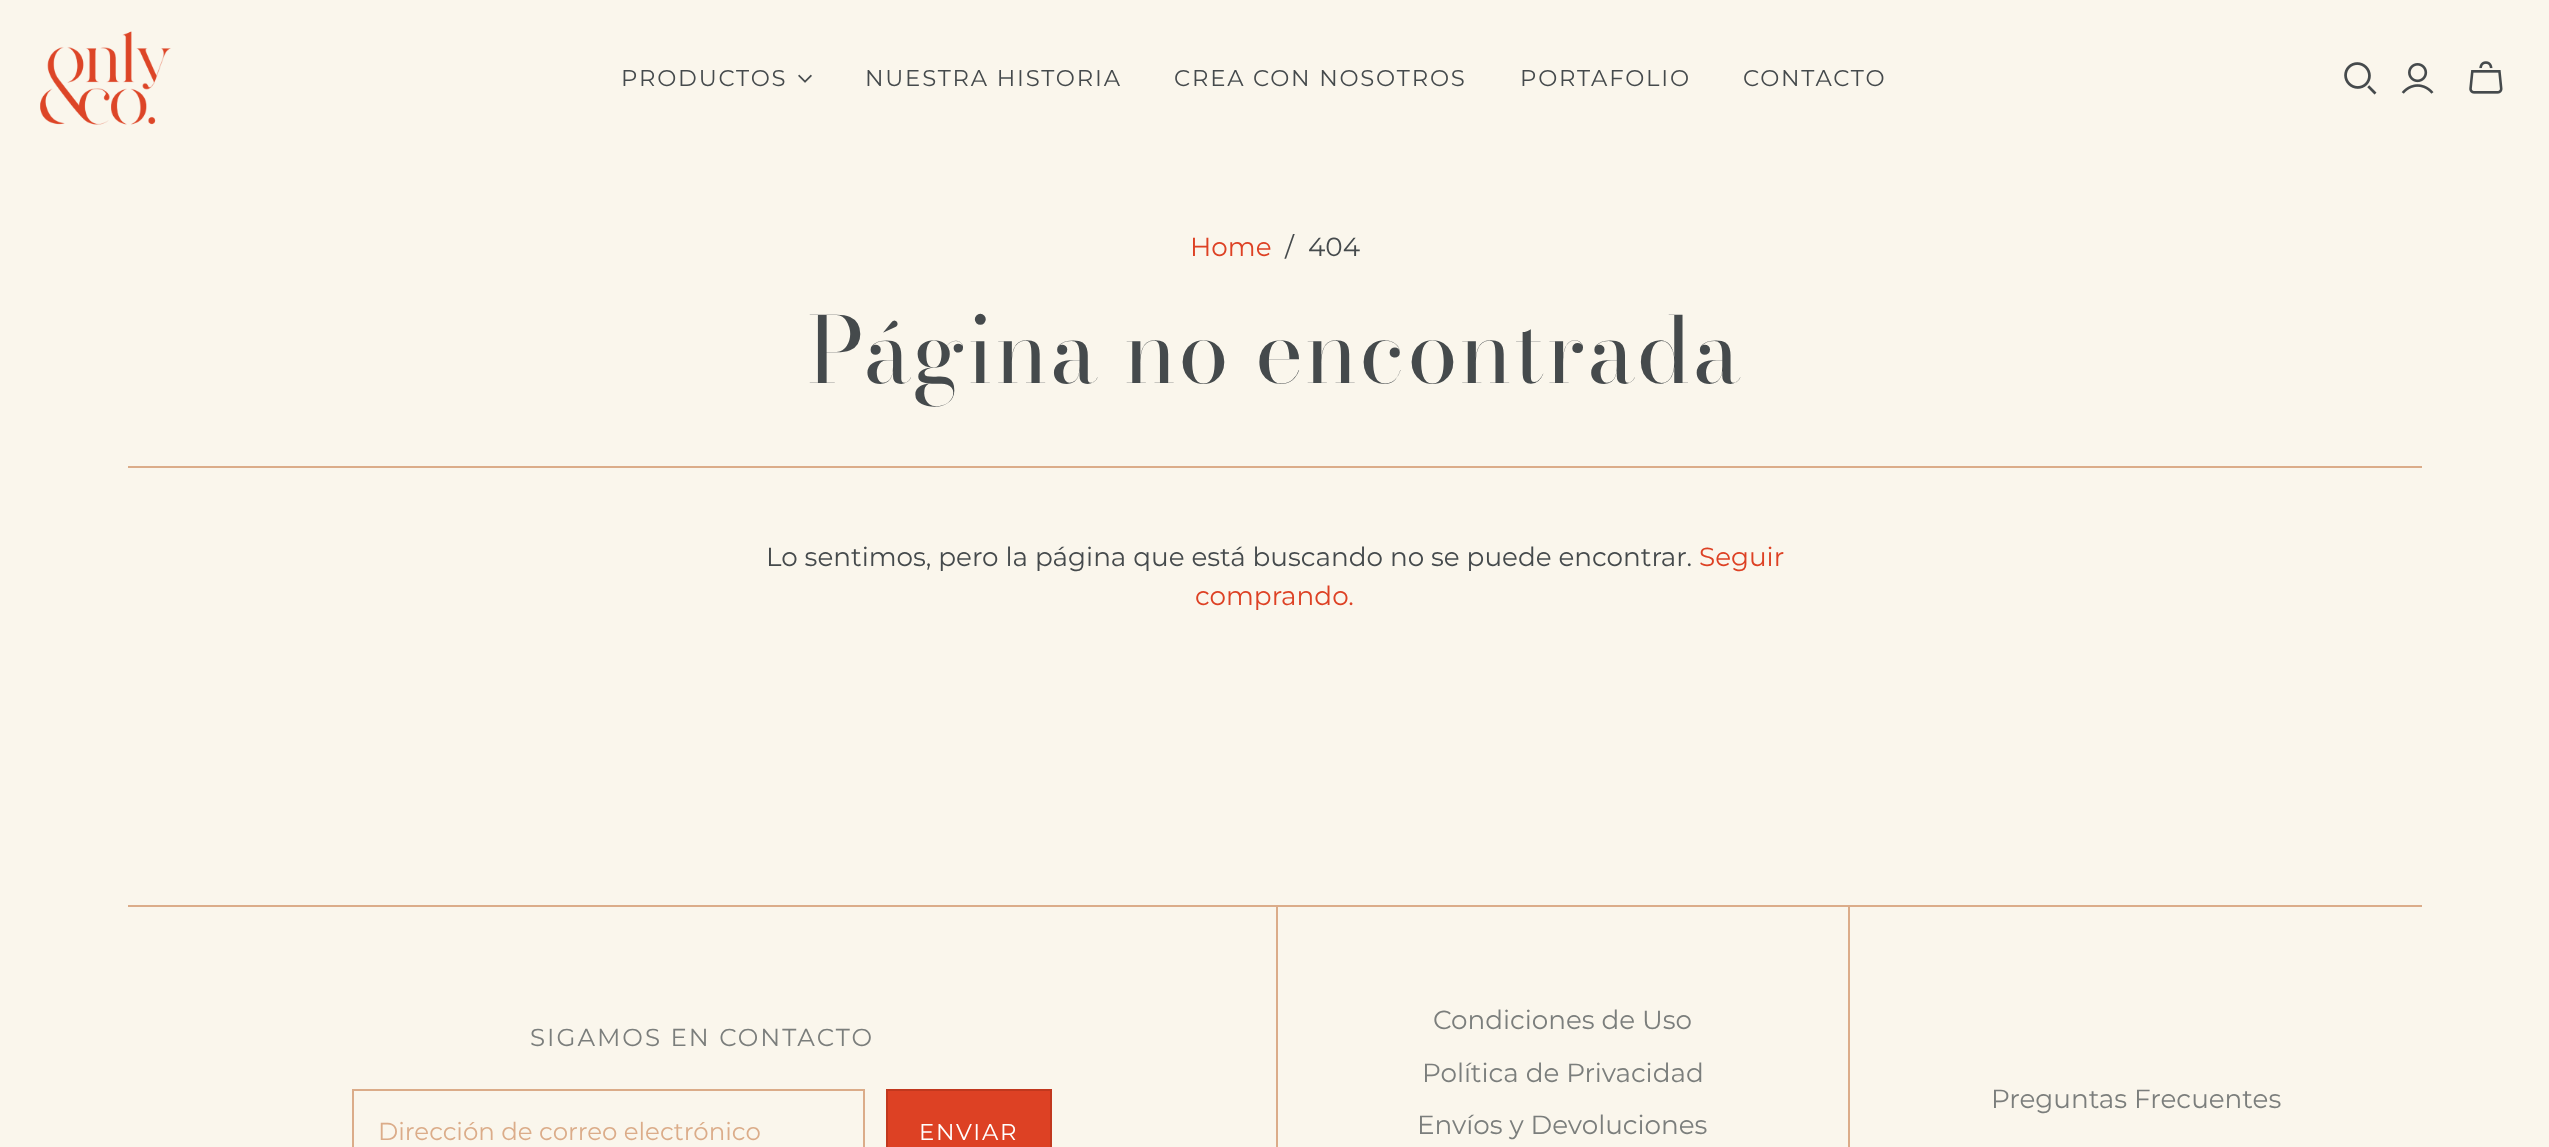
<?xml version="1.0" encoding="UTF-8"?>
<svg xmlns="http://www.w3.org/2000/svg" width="2549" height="1147">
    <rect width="100%" height="100%" fill="#FAF6EC"/>
    <image x="40" y="31" width="131" height="94" href="img_01.png"/>
    <text x="621" y="86" font-family="Montserrat" font-size="22.75" letter-spacing="1.8" fill="#454A4C">PRODUCTOS</text>
    <image x="798" y="74" width="14" height="9" href="img_02.png"/>
    <text x="865" y="86" font-family="Montserrat" font-size="22.75" letter-spacing="1.8" fill="#454A4C">NUESTRA HISTORIA</text>
    <text x="1174" y="86" font-family="Montserrat" font-size="22.75" letter-spacing="1.8" fill="#454A4C">CREA CON NOSOTROS</text>
    <text x="1520" y="86" font-family="Montserrat" font-size="22.75" letter-spacing="1.8" fill="#454A4C">PORTAFOLIO</text>
    <text x="1743" y="86" font-family="Montserrat" font-size="22.75" letter-spacing="1.8" fill="#454A4C">CONTACTO</text>
    <image x="2344" y="62" width="33" height="33" href="img_03.png"/>
    <image x="2401" y="63" width="33" height="31" href="img_04.png"/>
    <image x="2469" y="61" width="34" height="33" href="img_05.png"/>
    <text x="1190" y="256" font-family="Montserrat" font-size="26.25" fill="#DD4124">Home</text>
    <text x="1285" y="256" font-family="Montserrat" font-size="26.25" fill="#454A4C">/</text>
    <text x="1308" y="256" font-family="Montserrat" font-size="26.25" fill="#454A4C">404</text>
    <rect x="128" y="466" width="2294" height="2" fill="#DBAC89"/>
    <text x="808" y="383" font-family="Bodoni Moda" font-size="91" letter-spacing="1.8" fill="#454A4C">Página no encontrada</text>
    <text x="766" y="566" font-family="Montserrat" font-size="26.25" fill="#454A4C">Lo sentimos, pero la página que está buscando no se puede encontrar.</text>
    <text x="1699" y="566" font-family="Montserrat" font-size="26.25" fill="#DD4124">Seguir</text>
    <text x="1195" y="605" font-family="Montserrat" font-size="26.25" fill="#DD4124">comprando.</text>
    <rect x="128" y="905" width="2294" height="2" fill="#DBAC89"/>
    <text x="530" y="1046" font-family="Montserrat" font-size="24.5" letter-spacing="2" fill="#7B7E7C">SIGAMOS EN CONTACTO</text>
    <rect x="353" y="1090" width="511" height="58" fill="none" stroke="#DBAC89" stroke-width="2"/>
    <text x="378" y="1140" font-family="Montserrat" font-size="24.5" fill="#DBAC89">Dirección de correo electrónico</text>
    <rect x="887" y="1090" width="164" height="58" fill="#DD4124" stroke="#C1381E" stroke-width="2"/>
    <text x="919" y="1140" font-family="Montserrat" font-size="22.75" letter-spacing="1.8" fill="#FFFFFF">ENVIAR</text>
    <rect x="1276" y="907" width="2" height="240" fill="#DBAC89"/>
    <text x="1433" y="1029" font-family="Montserrat" font-size="26.25" fill="#7B7E7C">Condiciones de Uso</text>
    <text x="1422" y="1082" font-family="Montserrat" font-size="26.25" fill="#7B7E7C">Política de Privacidad</text>
    <text x="1417" y="1134" font-family="Montserrat" font-size="26.25" fill="#7B7E7C">Envíos y Devoluciones</text>
    <rect x="1848" y="907" width="2" height="240" fill="#DBAC89"/>
    <text x="1991" y="1108" font-family="Montserrat" font-size="26.25" fill="#7B7E7C">Preguntas Frecuentes</text>
</svg>
